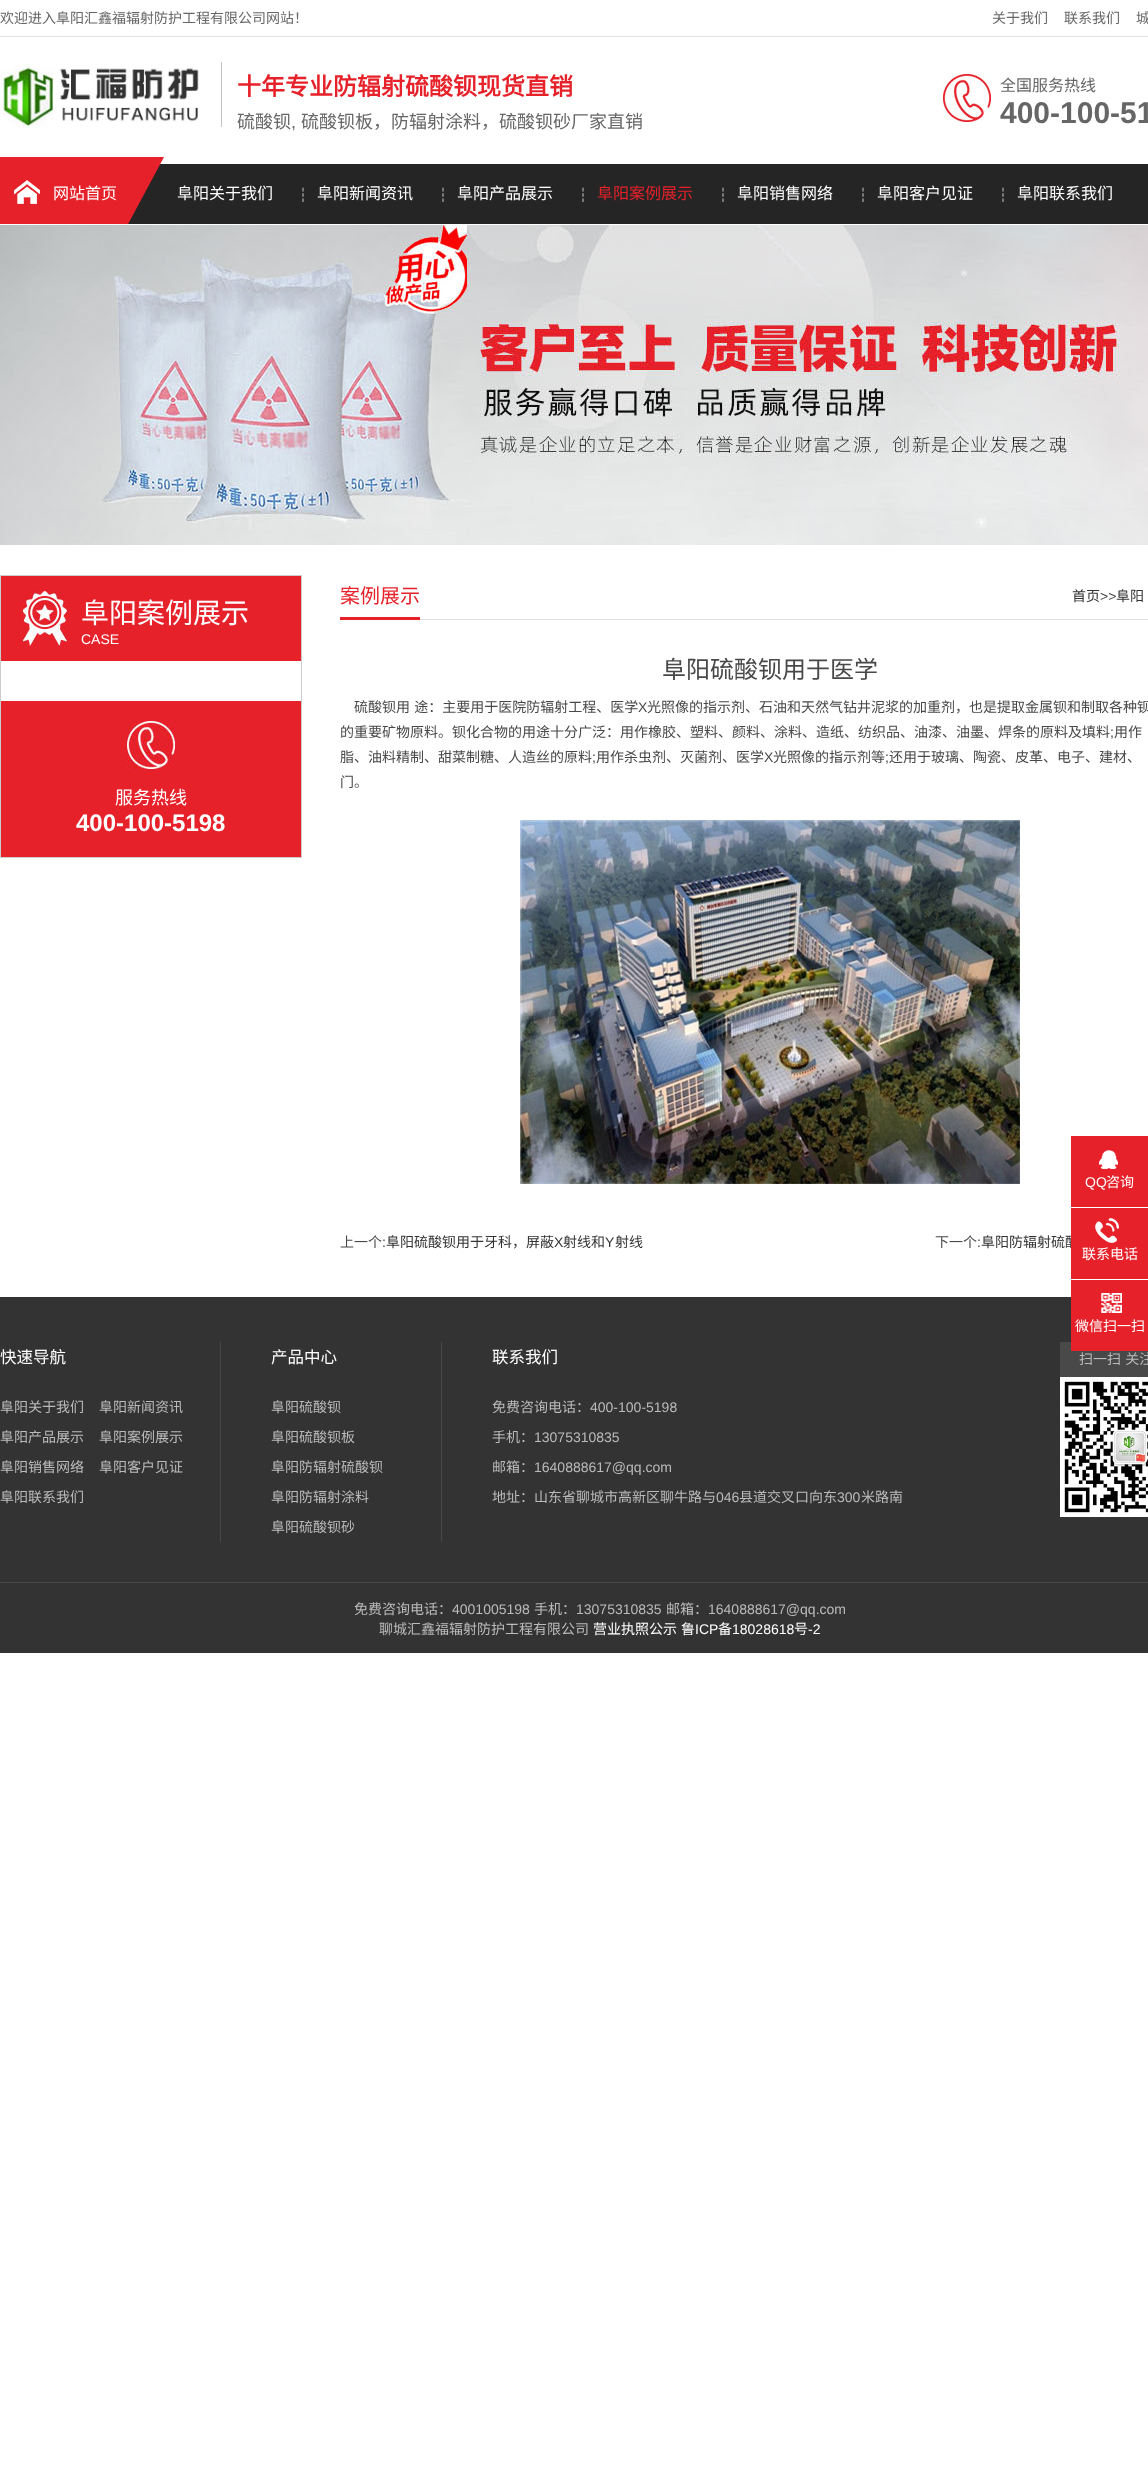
<?xml version="1.0" encoding="UTF-8"?>
<svg xmlns="http://www.w3.org/2000/svg" width="1148" height="2486">
    <rect width="100%" height="100%" fill="#FFFFFF"/>
    <rect x="0" y="36" width="1148" height="1" fill="#E2E2E2"/>
    <text x="0" y="23" font-family="Noto Sans CJK SC" font-size="14" fill="#666666">欢迎进入阜阳汇鑫福辐射防护工程有限公司网站！</text>
    <text x="992" y="23" font-family="Noto Sans CJK SC" font-size="14" fill="#666666">关于我们</text>
    <text x="1064" y="23" font-family="Noto Sans CJK SC" font-size="14" fill="#666666">联系我们</text>
    <text x="1136" y="23" font-family="Noto Sans CJK SC" font-size="14" fill="#666666">城</text>
    <image x="0" y="64" width="199" height="64" href="img_01.png"/>
    <rect x="221" y="62" width="1" height="65" fill="#C4C4C4"/>
    <text x="237" y="95" font-family="Noto Sans CJK SC" font-size="24" font-weight="700" fill="#E6212A">十年专业防辐射硫酸钡现货直销</text>
    <text x="237" y="128" font-family="Noto Sans CJK SC" font-size="18" fill="#666666">硫酸钡</text>
    <text x="291" y="128" font-family="Liberation Sans" font-size="18" fill="#666666">,</text>
    <text x="301" y="128" font-family="Noto Sans CJK SC" font-size="18" fill="#666666">硫酸钡板，防辐射涂料，硫酸钡砂厂家直销</text>
    <image x="942" y="73" width="50" height="49" href="img_02.png"/>
    <text x="1000" y="91" font-family="Noto Sans CJK SC" font-size="16" fill="#666666">全国服务热线</text>
    <text x="1000" y="123" font-family="Liberation Sans" font-size="30" font-weight="700" fill="#666666">400-100-51</text>
    <image x="0" y="157" width="1148" height="67" href="img_03.png"/>
    <text x="53" y="199" font-family="Noto Sans CJK SC" font-size="16" fill="#FFFFFF">网站首页</text>
    <text x="177" y="199" font-family="Noto Sans CJK SC" font-size="16" fill="#FFFFFF">阜阳关于我们</text>
    <text x="295" y="201" font-family="Noto Sans CJK SC" font-size="16" fill="#FFFFFF">┆</text>
    <text x="317" y="199" font-family="Noto Sans CJK SC" font-size="16" fill="#FFFFFF">阜阳新闻资讯</text>
    <text x="435" y="201" font-family="Noto Sans CJK SC" font-size="16" fill="#FFFFFF">┆</text>
    <text x="457" y="199" font-family="Noto Sans CJK SC" font-size="16" fill="#FFFFFF">阜阳产品展示</text>
    <text x="575" y="201" font-family="Noto Sans CJK SC" font-size="16" fill="#FFFFFF">┆</text>
    <text x="597" y="199" font-family="Noto Sans CJK SC" font-size="16" fill="#E6212A">阜阳案例展示</text>
    <text x="715" y="201" font-family="Noto Sans CJK SC" font-size="16" fill="#FFFFFF">┆</text>
    <text x="737" y="199" font-family="Noto Sans CJK SC" font-size="16" fill="#FFFFFF">阜阳销售网络</text>
    <text x="855" y="201" font-family="Noto Sans CJK SC" font-size="16" fill="#FFFFFF">┆</text>
    <text x="877" y="199" font-family="Noto Sans CJK SC" font-size="16" fill="#FFFFFF">阜阳客户见证</text>
    <text x="995" y="201" font-family="Noto Sans CJK SC" font-size="16" fill="#FFFFFF">┆</text>
    <text x="1017" y="199" font-family="Noto Sans CJK SC" font-size="16" fill="#FFFFFF">阜阳联系我们</text>
    <image x="0" y="225" width="1148" height="320" href="img_04.png"/>
    <rect x="0.5" y="575.5" width="301" height="282" fill="none" stroke="#CCCCCC"/>
    <rect x="1" y="576" width="300" height="85" fill="#E6212A"/>
    <image x="21" y="590" width="48" height="56" href="img_05.png"/>
    <text x="81" y="623" font-family="Noto Sans CJK SC" font-size="28" fill="#FFFFFF">阜阳案例展示</text>
    <text x="81" y="644" font-family="Liberation Sans" font-size="14" fill="#FFFFFF">CASE</text>
    <rect x="1" y="701" width="300" height="156" fill="#E6212A"/>
    <image x="127" y="721" width="49" height="49" href="img_06.png"/>
    <text x="115" y="804" font-family="Noto Sans CJK SC" font-size="18" fill="#FFFFFF">服务热线</text>
    <text x="76" y="831" font-family="Liberation Sans" font-size="24" font-weight="700" fill="#FFFFFF">400-100-5198</text>
    <rect x="420" y="619" width="728" height="1" fill="#E1E1E1"/>
    <text x="340" y="603" font-family="Noto Sans CJK SC" font-size="20" fill="#E6212A">案例展示</text>
    <rect x="340" y="617" width="80" height="3" fill="#E6212A"/>
    <text x="1072" y="601" font-family="Noto Sans CJK SC" font-size="14" fill="#333333">首页</text>
    <text x="1100" y="601" font-family="Liberation Sans" font-size="14" fill="#484848">&gt;&gt;</text>
    <text x="1116" y="601" font-family="Noto Sans CJK SC" font-size="14" fill="#333333">阜阳</text>
    <text x="662" y="678" font-family="Noto Sans CJK SC" font-size="24" fill="#484848">阜阳硫酸钡用于医学</text>
    <text x="354" y="712" word-spacing="1" font-family="Noto Sans CJK SC" font-size="14" fill="#484848">硫酸钡用 途：主要用于医院防辐射工程、医学</text>
    <text x="638" y="712" font-family="Liberation Sans" font-size="14" fill="#484848">X</text>
    <text x="647" y="712" font-family="Noto Sans CJK SC" font-size="14" fill="#484848">光照像的指示剂、石油和天然气钻井泥浆的加重剂，也是提取金属钡和制取各种钡</text>
    <text x="340" y="737" font-family="Noto Sans CJK SC" font-size="14" fill="#484848">的重要矿物原料。钡化合物的用途十分广泛：用作橡胶、塑料、颜料、涂料、造纸、纺织品、油漆、油墨、焊条的原料及填料</text>
    <text x="1110" y="737" font-family="Liberation Sans" font-size="14" fill="#484848">;</text>
    <text x="1114" y="737" font-family="Noto Sans CJK SC" font-size="14" fill="#484848">用作</text>
    <text x="340" y="762" font-family="Noto Sans CJK SC" font-size="14" fill="#484848">脂、油料精制、甜菜制糖、人造丝的原料</text>
    <text x="592" y="762" font-family="Liberation Sans" font-size="14" fill="#484848">;</text>
    <text x="596" y="762" font-family="Noto Sans CJK SC" font-size="14" fill="#484848">用作杀虫剂、灭菌剂、医学</text>
    <text x="764" y="762" font-family="Liberation Sans" font-size="14" fill="#484848">X</text>
    <text x="773" y="762" font-family="Noto Sans CJK SC" font-size="14" fill="#484848">光照像的指示剂等</text>
    <text x="885" y="762" font-family="Liberation Sans" font-size="14" fill="#484848">;</text>
    <text x="889" y="762" font-family="Noto Sans CJK SC" font-size="14" fill="#484848">还用于玻璃、陶瓷、皮革、电子、建材、</text>
    <text x="340" y="787" font-family="Noto Sans CJK SC" font-size="14" fill="#484848">门。</text>
    <image x="520" y="820" width="500" height="364" href="img_07.png"/>
    <text x="340" y="1247" font-family="Noto Sans CJK SC" font-size="14" fill="#484848">上一个</text>
    <text x="382" y="1247" font-family="Liberation Sans" font-size="14" fill="#484848">:</text>
    <text x="386" y="1247" font-family="Noto Sans CJK SC" font-size="14" fill="#333333">阜阳硫酸钡用于牙科，屏蔽</text>
    <text x="554" y="1247" font-family="Liberation Sans" font-size="14" fill="#333333">X</text>
    <text x="563" y="1247" font-family="Noto Sans CJK SC" font-size="14" fill="#333333">射线和</text>
    <text x="605" y="1247" font-family="Liberation Sans" font-size="14" fill="#333333">Y</text>
    <text x="615" y="1247" font-family="Noto Sans CJK SC" font-size="14" fill="#333333">射线</text>
    <text x="935" y="1247" font-family="Noto Sans CJK SC" font-size="14" fill="#484848">下一个</text>
    <text x="977" y="1247" font-family="Liberation Sans" font-size="14" fill="#484848">:</text>
    <text x="981" y="1247" font-family="Noto Sans CJK SC" font-size="14" fill="#333333">阜阳防辐射硫酸</text>
    <rect x="1071" y="1136" width="77" height="71" fill="#E6212A"/>
    <image x="1099" y="1150" width="19" height="19" href="img_08.png"/>
    <text x="1085" y="1187" font-family="Liberation Sans" font-size="14" fill="#FFFFFF">QQ</text>
    <text x="1106" y="1187" font-family="Noto Sans CJK SC" font-size="14" fill="#FFFFFF">咨询</text>
    <rect x="1071" y="1208" width="77" height="71" fill="#E6212A"/>
    <image x="1095" y="1218" width="24" height="25" href="img_09.png"/>
    <text x="1082" y="1259" font-family="Noto Sans CJK SC" font-size="14" fill="#FFFFFF">联系电话</text>
    <rect x="0" y="1297" width="1148" height="285" fill="#333333"/>
    <rect x="1060" y="1342" width="88" height="35" fill="#494949"/>
    <rect x="1071" y="1280" width="77" height="71" fill="#E6212A"/>
    <image x="1101" y="1293" width="21" height="20" href="img_10.png"/>
    <text x="1075" y="1331" font-family="Noto Sans CJK SC" font-size="14" fill="#FFFFFF">微信扫一扫</text>
    <text x="0" y="1363" font-family="Noto Sans CJK SC" font-size="16.5" fill="#FFFFFF">快速导航</text>
    <text x="0" y="1412" font-family="Noto Sans CJK SC" font-size="14" fill="#BBBBBB">阜阳关于我们</text>
    <text x="99" y="1412" font-family="Noto Sans CJK SC" font-size="14" fill="#BBBBBB">阜阳新闻资讯</text>
    <text x="0" y="1442" font-family="Noto Sans CJK SC" font-size="14" fill="#BBBBBB">阜阳产品展示</text>
    <text x="99" y="1442" font-family="Noto Sans CJK SC" font-size="14" fill="#BBBBBB">阜阳案例展示</text>
    <text x="0" y="1472" font-family="Noto Sans CJK SC" font-size="14" fill="#BBBBBB">阜阳销售网络</text>
    <text x="99" y="1472" font-family="Noto Sans CJK SC" font-size="14" fill="#BBBBBB">阜阳客户见证</text>
    <text x="0" y="1502" font-family="Noto Sans CJK SC" font-size="14" fill="#BBBBBB">阜阳联系我们</text>
    <rect x="441" y="1342" width="1" height="200" fill="#484848"/>
    <rect x="220" y="1342" width="1" height="200" fill="#484848"/>
    <text x="271" y="1363" font-family="Noto Sans CJK SC" font-size="16.5" fill="#FFFFFF">产品中心</text>
    <text x="271" y="1412" font-family="Noto Sans CJK SC" font-size="14" fill="#BBBBBB">阜阳硫酸钡</text>
    <text x="271" y="1442" font-family="Noto Sans CJK SC" font-size="14" fill="#BBBBBB">阜阳硫酸钡板</text>
    <text x="271" y="1472" font-family="Noto Sans CJK SC" font-size="14" fill="#BBBBBB">阜阳防辐射硫酸钡</text>
    <text x="271" y="1502" font-family="Noto Sans CJK SC" font-size="14" fill="#BBBBBB">阜阳防辐射涂料</text>
    <text x="271" y="1532" font-family="Noto Sans CJK SC" font-size="14" fill="#BBBBBB">阜阳硫酸钡砂</text>
    <text x="492" y="1363" font-family="Noto Sans CJK SC" font-size="16.5" fill="#FFFFFF">联系我们</text>
    <text x="492" y="1412" font-family="Noto Sans CJK SC" font-size="14" fill="#BBBBBB">免费咨询电话：</text>
    <text x="590" y="1412" font-family="Liberation Sans" font-size="14" fill="#BBBBBB">400-100-5198</text>
    <text x="492" y="1442" font-family="Noto Sans CJK SC" font-size="14" fill="#BBBBBB">手机：</text>
    <text x="534" y="1442" font-family="Liberation Sans" font-size="14" fill="#BBBBBB">13075310835</text>
    <text x="492" y="1472" font-family="Noto Sans CJK SC" font-size="14" fill="#BBBBBB">邮箱：</text>
    <text x="534" y="1472" font-family="Liberation Sans" font-size="14" fill="#BBBBBB">1640888617@qq.com</text>
    <text x="492" y="1502" font-family="Noto Sans CJK SC" font-size="14" fill="#BBBBBB">地址：山东省聊城市高新区聊牛路与</text>
    <text x="716" y="1502" font-family="Liberation Sans" font-size="14" fill="#BBBBBB">046</text>
    <text x="739" y="1502" font-family="Noto Sans CJK SC" font-size="14" fill="#BBBBBB">县道交叉口向东</text>
    <text x="837" y="1502" font-family="Liberation Sans" font-size="14" fill="#BBBBBB">300</text>
    <text x="861" y="1502" font-family="Noto Sans CJK SC" font-size="14" fill="#BBBBBB">米路南</text>
    <text x="1079" y="1364" word-spacing="1" font-family="Noto Sans CJK SC" font-size="14" fill="#BBBBBB">扫一扫 关注</text>
    <image x="1060" y="1377" width="88" height="140" href="img_11.png"/>
    <rect x="0" y="1583" width="1148" height="70" fill="#333333"/>
    <rect x="0" y="1582" width="1148" height="1" fill="#484848"/>
    <text x="354" y="1614" font-family="Noto Sans CJK SC" font-size="14" fill="#BBBBBB">免费咨询电话：</text>
    <text x="452" y="1614" font-family="Liberation Sans" font-size="14" fill="#BBBBBB">4001005198</text>
    <text x="534" y="1614" font-family="Noto Sans CJK SC" font-size="14" fill="#BBBBBB">手机：</text>
    <text x="576" y="1614" font-family="Liberation Sans" font-size="14" fill="#BBBBBB">13075310835</text>
    <text x="666" y="1614" font-family="Noto Sans CJK SC" font-size="14" fill="#BBBBBB">邮箱：</text>
    <text x="708" y="1614" font-family="Liberation Sans" font-size="14" fill="#BBBBBB">1640888617@qq.com</text>
    <text x="379" y="1634" font-family="Noto Sans CJK SC" font-size="14" fill="#BBBBBB">聊城汇鑫福辐射防护工程有限公司</text>
    <text x="593" y="1634" font-family="Noto Sans CJK SC" font-size="14" fill="#FFFFFF">营业执照公示</text>
    <text x="681" y="1634" font-family="Noto Sans CJK SC" font-size="14" fill="#FFFFFF">鲁</text>
    <text x="695" y="1634" font-family="Liberation Sans" font-size="14" fill="#FFFFFF">ICP</text>
    <text x="718" y="1634" font-family="Noto Sans CJK SC" font-size="14" fill="#FFFFFF">备</text>
    <text x="732" y="1634" font-family="Liberation Sans" font-size="14" fill="#FFFFFF">18028618</text>
    <text x="794" y="1634" font-family="Noto Sans CJK SC" font-size="14" fill="#FFFFFF">号</text>
    <text x="808" y="1634" font-family="Liberation Sans" font-size="14" fill="#FFFFFF">-2</text>
</svg>
